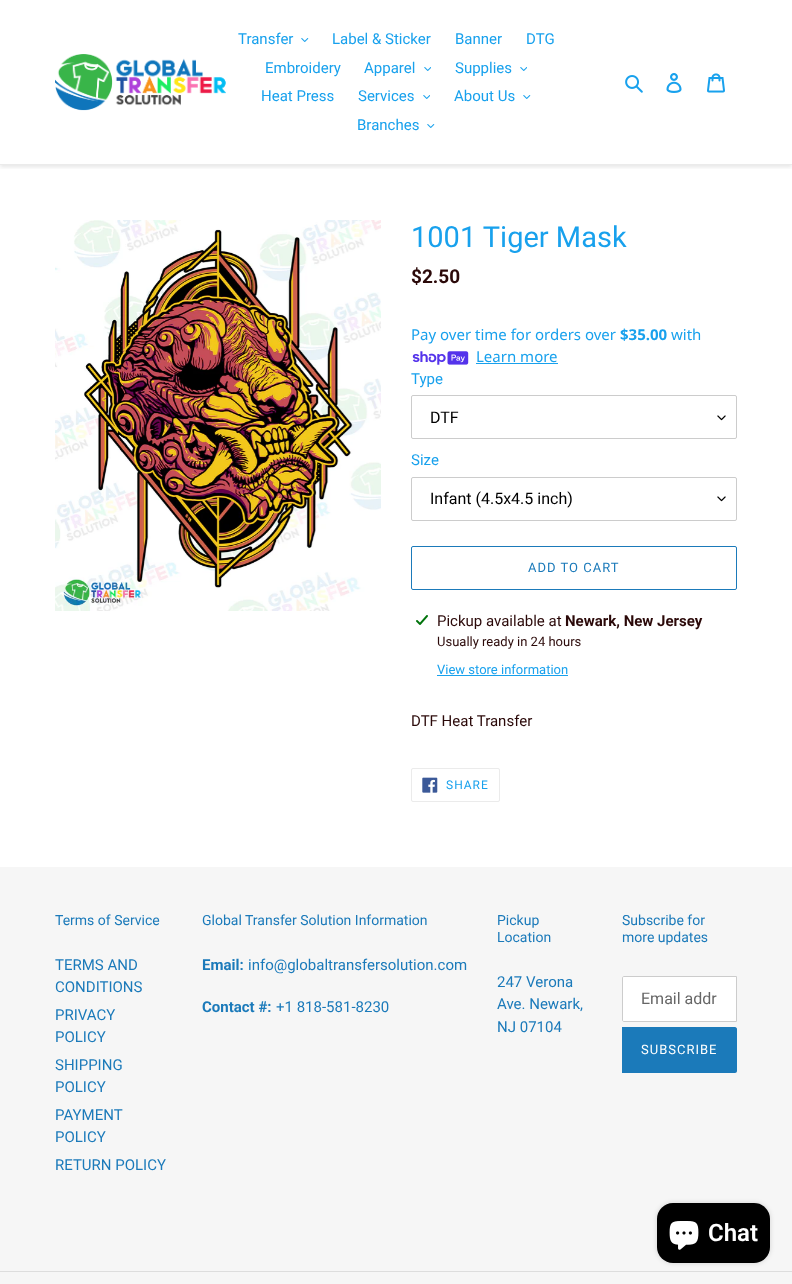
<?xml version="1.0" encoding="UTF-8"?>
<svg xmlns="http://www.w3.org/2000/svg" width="792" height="1284">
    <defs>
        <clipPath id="clip1"><rect x="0" y="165" width="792" height="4"/></clipPath>
        <filter id="blur1" x="-50%" y="-200%" width="200%" height="500%"><feGaussianBlur stdDeviation="2"/></filter>
        <filter id="blur2" x="-50%" y="-200%" width="200%" height="500%"><feGaussianBlur stdDeviation="2.5"/></filter>
    </defs>
    <rect width="100%" height="100%" fill="#FFFFFF"/>
    <g clip-path="url(#clip1)">
        <rect x="0" y="2" width="792" height="165" fill="#000000" fill-opacity="0.1" filter="url(#blur1)"/>
    </g>
    <rect x="0" y="164" width="792" height="1" fill="#EBEBEB"/>
    <image x="55" y="54" width="171" height="57" href="img_01.png"/>
    <text x="238" y="44" font-family="Roboto" font-size="15" fill="#18A1ED">Transfer</text>
    <image x="301" y="38" width="8" height="4" href="img_02.png"/>
    <text x="332" y="44" font-family="Roboto" font-size="15" fill="#18A1ED">Label &amp; Sticker</text>
    <text x="455" y="44" font-family="Roboto" font-size="15" fill="#18A1ED">Banner</text>
    <text x="526" y="44" font-family="Roboto" font-size="15" fill="#18A1ED">DTG</text>
    <text x="265" y="73" font-family="Roboto" font-size="15" fill="#18A1ED">Embroidery</text>
    <text x="364" y="73" font-family="Roboto" font-size="15" fill="#18A1ED">Apparel</text>
    <image x="424" y="67" width="7" height="4" href="img_03.png"/>
    <text x="455" y="73" font-family="Roboto" font-size="15" fill="#18A1ED">Supplies</text>
    <image x="520" y="67" width="7" height="4" href="img_03.png"/>
    <text x="261" y="101" font-family="Roboto" font-size="15" fill="#18A1ED">Heat Press</text>
    <text x="358" y="101" font-family="Roboto" font-size="15" fill="#18A1ED">Services</text>
    <image x="423" y="95" width="7" height="4" href="img_03.png"/>
    <text x="454" y="101" font-family="Roboto" font-size="15" fill="#18A1ED">About Us</text>
    <image x="523" y="95" width="8" height="4" href="img_02.png"/>
    <text x="357" y="130" font-family="Roboto" font-size="15" fill="#18A1ED">Branches</text>
    <image x="427" y="124" width="8" height="4" href="img_02.png"/>
    <image x="625" y="75" width="18" height="18" href="img_04.png"/>
    <image x="666" y="73" width="16" height="20" href="img_05.png"/>
    <image x="707" y="73" width="18" height="20" href="img_06.png"/>
    <image x="55" y="220" width="326" height="391" href="img_07.png"/>
    <text x="411" y="247" font-family="Roboto" font-size="29" fill="#18A1ED">1001 Tiger Mask</text>
    <text x="411" y="283" font-family="Roboto" font-size="19" font-weight="700" fill="#2B0909">$2.50</text>
    <text x="411" y="340" font-family="Noto Sans" font-size="15" fill="#18A1ED">Pay over time for orders over</text>
    <text x="620" y="340" font-family="Noto Sans" font-size="15" font-weight="700" fill="#18A1ED">$35.00</text>
    <text x="671" y="340" font-family="Noto Sans" font-size="15" fill="#18A1ED">with</text>
    <image x="412" y="351" width="57" height="14" href="img_08.png"/>
    <text x="476" y="362" font-family="Noto Sans" font-size="15" fill="#18A1ED">Learn more</text>
    <rect x="476" y="363" width="82" height="1" fill="#18A1ED"/>
    <text x="411" y="384" font-family="Roboto" font-size="15" fill="#18A1ED">Type</text>
    <image x="717" y="415" width="9" height="6" href="img_09.png"/>
    <rect x="411.5" y="395.5" width="325" height="43" rx="1.5" fill="none" stroke="#CCCCCC"/>
    <text x="430" y="423" font-family="Roboto" font-size="16" fill="#000000">DTF</text>
    <text x="411" y="465" font-family="Roboto" font-size="15" fill="#18A1ED">Size</text>
    <image x="717" y="496" width="9" height="6" href="img_09.png"/>
    <rect x="411.5" y="477.5" width="325" height="43" rx="1.5" fill="none" stroke="#CCCCCC"/>
    <text x="430" y="504" font-family="Roboto" font-size="16" fill="#000000">Infant (4.5x4.5 inch)</text>
    <rect x="411.5" y="546.5" width="325" height="43" rx="1.5" fill="none" stroke="#1B7ABA"/>
    <text x="528" y="572" font-family="Roboto" font-size="13" letter-spacing="1" fill="#1B7ABA">ADD TO CART</text>
    <image x="416" y="615" width="12" height="10" href="img_10.png"/>
    <text x="437" y="626" font-family="Roboto" font-size="15" fill="#2B0909">Pickup available at</text>
    <text x="565" y="626" font-family="Roboto" font-size="15" font-weight="700" fill="#2B0909">Newark, New Jersey</text>
    <text x="437" y="646" font-family="Roboto" font-size="13" fill="#2B0909">Usually ready in 24 hours</text>
    <text x="437" y="674" font-family="Roboto" font-size="13" fill="#18A1ED">View store information</text>
    <rect x="437" y="675" width="131" height="1" fill="#18A1ED"/>
    <text x="411" y="726" font-family="Roboto" font-size="15" fill="#2B0909">DTF Heat Transfer</text>
    <rect x="411.5" y="768.5" width="88" height="33" rx="1.5" fill="none" stroke="#EBEBEB"/>
    <image x="422" y="777" width="16" height="16" href="img_11.png"/>
    <text x="446" y="789" font-family="Roboto" font-size="12" letter-spacing="1" fill="#18A1ED">SHARE</text>
    <rect x="0" y="867" width="792" height="417" fill="#F6F6F6"/>
    <text x="55" y="925" font-family="Roboto" font-size="14" fill="#1B7ABA">Terms of Service</text>
    <text font-family="Roboto" font-size="15" fill="#1B7ABA">
        <tspan x="55" y="970">TERMS AND</tspan>
        <tspan x="55" y="992">CONDITIONS</tspan>
        <tspan x="55" y="1020">PRIVACY</tspan>
        <tspan x="55" y="1042">POLICY</tspan>
        <tspan x="55" y="1070">SHIPPING</tspan>
        <tspan x="55" y="1092">POLICY</tspan>
        <tspan x="55" y="1120">PAYMENT</tspan>
        <tspan x="55" y="1142">POLICY</tspan>
        <tspan x="55" y="1170">RETURN POLICY</tspan>
    </text>
    <text x="202" y="925" font-family="Roboto" font-size="14" fill="#1B7ABA">Global Transfer Solution Information</text>
    <text x="202" y="970" font-family="Roboto" font-size="15" font-weight="700" fill="#1B7ABA">Email:</text>
    <text x="248" y="970" font-family="Roboto" font-size="15" fill="#1B7ABA">info@globaltransfersolution.com</text>
    <text x="202" y="1012" font-family="Roboto" font-size="15" font-weight="700" fill="#1B7ABA">Contact #:</text>
    <text x="276" y="1012" font-family="Roboto" font-size="15" fill="#1B7ABA">+1 818-581-8230</text>
    <text font-family="Roboto" font-size="14" fill="#1B7ABA">
        <tspan x="497" y="925">Pickup</tspan>
        <tspan x="497" y="942">Location</tspan>
    </text>
    <text font-family="Roboto" font-size="15" fill="#1B7ABA">
        <tspan x="497" y="987">247 Verona</tspan>
        <tspan x="497" y="1009">Ave. Newark,</tspan>
        <tspan x="497" y="1032">NJ 07104</tspan>
    </text>
    <text font-family="Roboto" font-size="14" fill="#1B7ABA">
        <tspan x="622" y="925">Subscribe for</tspan>
        <tspan x="622" y="942">more updates</tspan>
    </text>
    <path d="M 624 976.5 H 736.5 V 1021.5 H 624 C 623 1021.5 622.5 1021 622.5 1020 V 978 C 622.5 977 623 976.5 624 976.5 Z" fill="#FFFFFF" stroke="#CCCCCC"/>
    <text x="641" y="1004" font-family="Roboto" font-size="16" fill="#666666">Email addr</text>
    <path d="M 622 1027 H 735 C 736 1027 737 1028 737 1029 V 1071 C 737 1072 736 1073 735 1073 H 622 Z" fill="#1B7ABA"/>
    <text x="641" y="1054" font-family="Roboto" font-size="13" letter-spacing="1" fill="#FFFFFF">SUBSCRIBE</text>
    <rect x="0" y="1271" width="792" height="1" fill="#DDDDDD"/>
    <rect x="657" y="1203" width="113" height="60" rx="16" fill="#000000" fill-opacity="0.15" filter="url(#blur2)"/>
    <rect x="657" y="1203" width="113" height="60" rx="16" fill="#000000"/>
    <image x="669" y="1221" width="30" height="29" href="img_12.png"/>
    <text x="708" y="1241" font-family="Roboto" font-size="24" font-weight="600" fill="#FFFFFF">Chat</text>
</svg>
